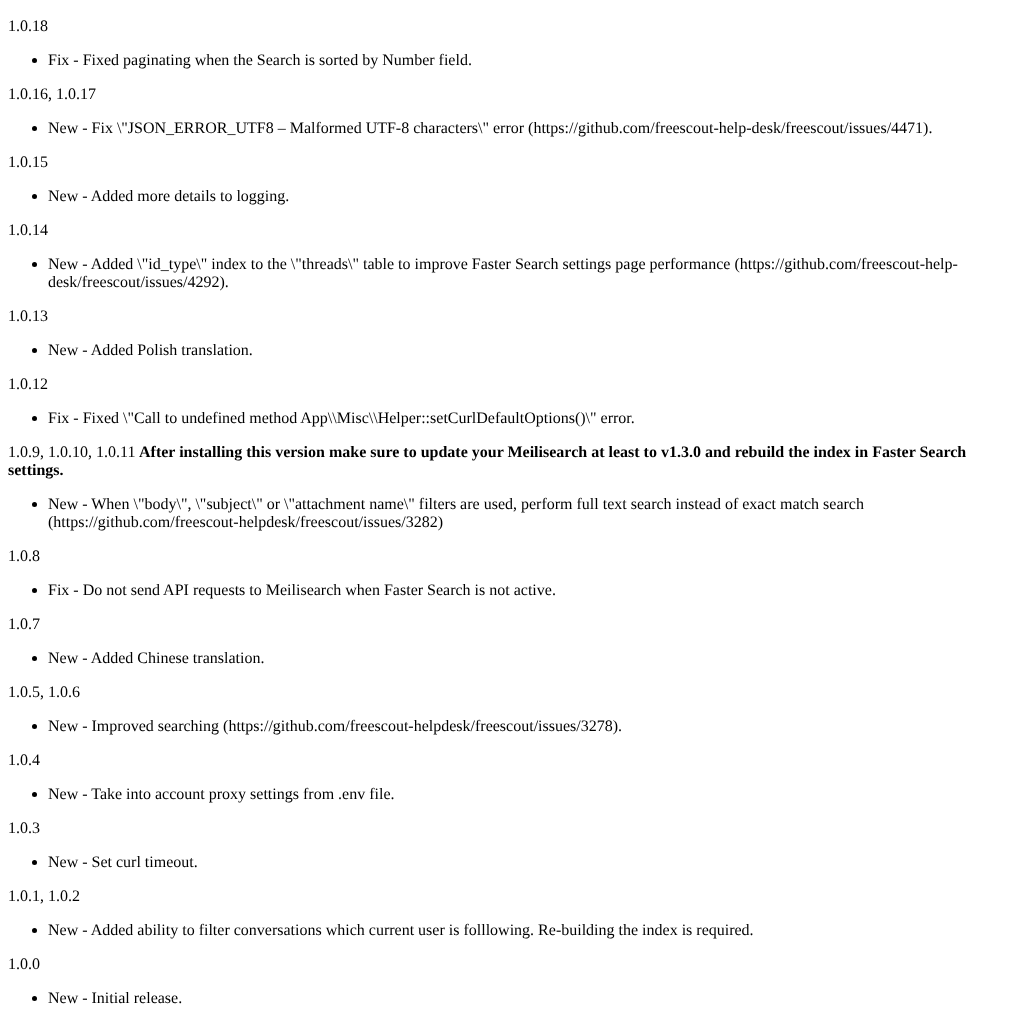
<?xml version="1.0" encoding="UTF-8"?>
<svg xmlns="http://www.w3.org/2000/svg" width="1027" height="1023">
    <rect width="100%" height="100%" fill="#FFFFFF"/>
    <text x="8" y="31" font-family="Liberation Serif" font-size="16" fill="#000000">1.0.18</text>
    <circle cx="34.5" cy="60.5" r="2.5" fill="#000000"/>
    <text x="48" y="65" font-family="Liberation Serif" font-size="16" fill="#000000">Fix - Fixed paginating when the Search is sorted by Number field.</text>
    <text x="8" y="99" font-family="Liberation Serif" font-size="16" fill="#000000">1.0.16, 1.0.17</text>
    <circle cx="34.5" cy="128.5" r="2.5" fill="#000000"/>
    <text x="48" y="133" font-family="Liberation Serif" font-size="16" fill="#000000">New - Fix \"JSON_ERROR_UTF8 – Malformed UTF-8 characters\" error (https://github.com/freescout-help-desk/freescout/issues/4471).</text>
    <text x="8" y="167" font-family="Liberation Serif" font-size="16" fill="#000000">1.0.15</text>
    <circle cx="34.5" cy="196.5" r="2.5" fill="#000000"/>
    <text x="48" y="201" font-family="Liberation Serif" font-size="16" fill="#000000">New - Added more details to logging.</text>
    <text x="8" y="235" font-family="Liberation Serif" font-size="16" fill="#000000">1.0.14</text>
    <circle cx="34.5" cy="264.5" r="2.5" fill="#000000"/>
    <text font-family="Liberation Serif" font-size="16" fill="#000000">
        <tspan x="48" y="269">New - Added \"id_type\" index to the \"threads\" table to improve Faster Search settings page performance (https://github.com/freescout-help-</tspan>
        <tspan x="48" y="287">desk/freescout/issues/4292).</tspan>
    </text>
    <text x="8" y="321" font-family="Liberation Serif" font-size="16" fill="#000000">1.0.13</text>
    <circle cx="34.5" cy="350.5" r="2.5" fill="#000000"/>
    <text x="48" y="355" font-family="Liberation Serif" font-size="16" fill="#000000">New - Added Polish translation.</text>
    <text x="8" y="389" font-family="Liberation Serif" font-size="16" fill="#000000">1.0.12</text>
    <circle cx="34.5" cy="418.5" r="2.5" fill="#000000"/>
    <text x="48" y="423" font-family="Liberation Serif" font-size="16" fill="#000000">Fix - Fixed \"Call to undefined method App\\Misc\\Helper::setCurlDefaultOptions()\" error.</text>
    <text x="8" y="457" font-family="Liberation Serif" font-size="16" fill="#000000">1.0.9, 1.0.10, 1.0.11</text>
    <text x="139" y="457" font-family="Liberation Serif" font-size="16" font-weight="700" fill="#000000">After installing this version make sure to update your Meilisearch at least to v1.3.0 and rebuild the index in Faster Search</text>
    <text x="8" y="475" font-family="Liberation Serif" font-size="16" font-weight="700" fill="#000000">settings.</text>
    <circle cx="34.5" cy="504.5" r="2.5" fill="#000000"/>
    <text font-family="Liberation Serif" font-size="16" fill="#000000">
        <tspan x="48" y="509">New - When \"body\", \"subject\" or \"attachment name\" filters are used, perform full text search instead of exact match search</tspan>
        <tspan x="48" y="527">(https://github.com/freescout-helpdesk/freescout/issues/3282)</tspan>
    </text>
    <text x="8" y="561" font-family="Liberation Serif" font-size="16" fill="#000000">1.0.8</text>
    <circle cx="34.5" cy="590.5" r="2.5" fill="#000000"/>
    <text x="48" y="595" font-family="Liberation Serif" font-size="16" fill="#000000">Fix - Do not send API requests to Meilisearch when Faster Search is not active.</text>
    <text x="8" y="629" font-family="Liberation Serif" font-size="16" fill="#000000">1.0.7</text>
    <circle cx="34.5" cy="658.5" r="2.5" fill="#000000"/>
    <text x="48" y="663" font-family="Liberation Serif" font-size="16" fill="#000000">New - Added Chinese translation.</text>
    <text x="8" y="697" font-family="Liberation Serif" font-size="16" fill="#000000">1.0.5, 1.0.6</text>
    <circle cx="34.5" cy="726.5" r="2.5" fill="#000000"/>
    <text x="48" y="731" font-family="Liberation Serif" font-size="16" fill="#000000">New - Improved searching (https://github.com/freescout-helpdesk/freescout/issues/3278).</text>
    <text x="8" y="765" font-family="Liberation Serif" font-size="16" fill="#000000">1.0.4</text>
    <circle cx="34.5" cy="794.5" r="2.5" fill="#000000"/>
    <text x="48" y="799" font-family="Liberation Serif" font-size="16" fill="#000000">New - Take into account proxy settings from .env file.</text>
    <text x="8" y="833" font-family="Liberation Serif" font-size="16" fill="#000000">1.0.3</text>
    <circle cx="34.5" cy="862.5" r="2.5" fill="#000000"/>
    <text x="48" y="867" font-family="Liberation Serif" font-size="16" fill="#000000">New - Set curl timeout.</text>
    <text x="8" y="901" font-family="Liberation Serif" font-size="16" fill="#000000">1.0.1, 1.0.2</text>
    <circle cx="34.5" cy="930.5" r="2.5" fill="#000000"/>
    <text x="48" y="935" font-family="Liberation Serif" font-size="16" fill="#000000">New - Added ability to filter conversations which current user is folllowing. Re-building the index is required.</text>
    <text x="8" y="969" font-family="Liberation Serif" font-size="16" fill="#000000">1.0.0</text>
    <circle cx="34.5" cy="998.5" r="2.5" fill="#000000"/>
    <text x="48" y="1003" font-family="Liberation Serif" font-size="16" fill="#000000">New - Initial release.</text>
</svg>
